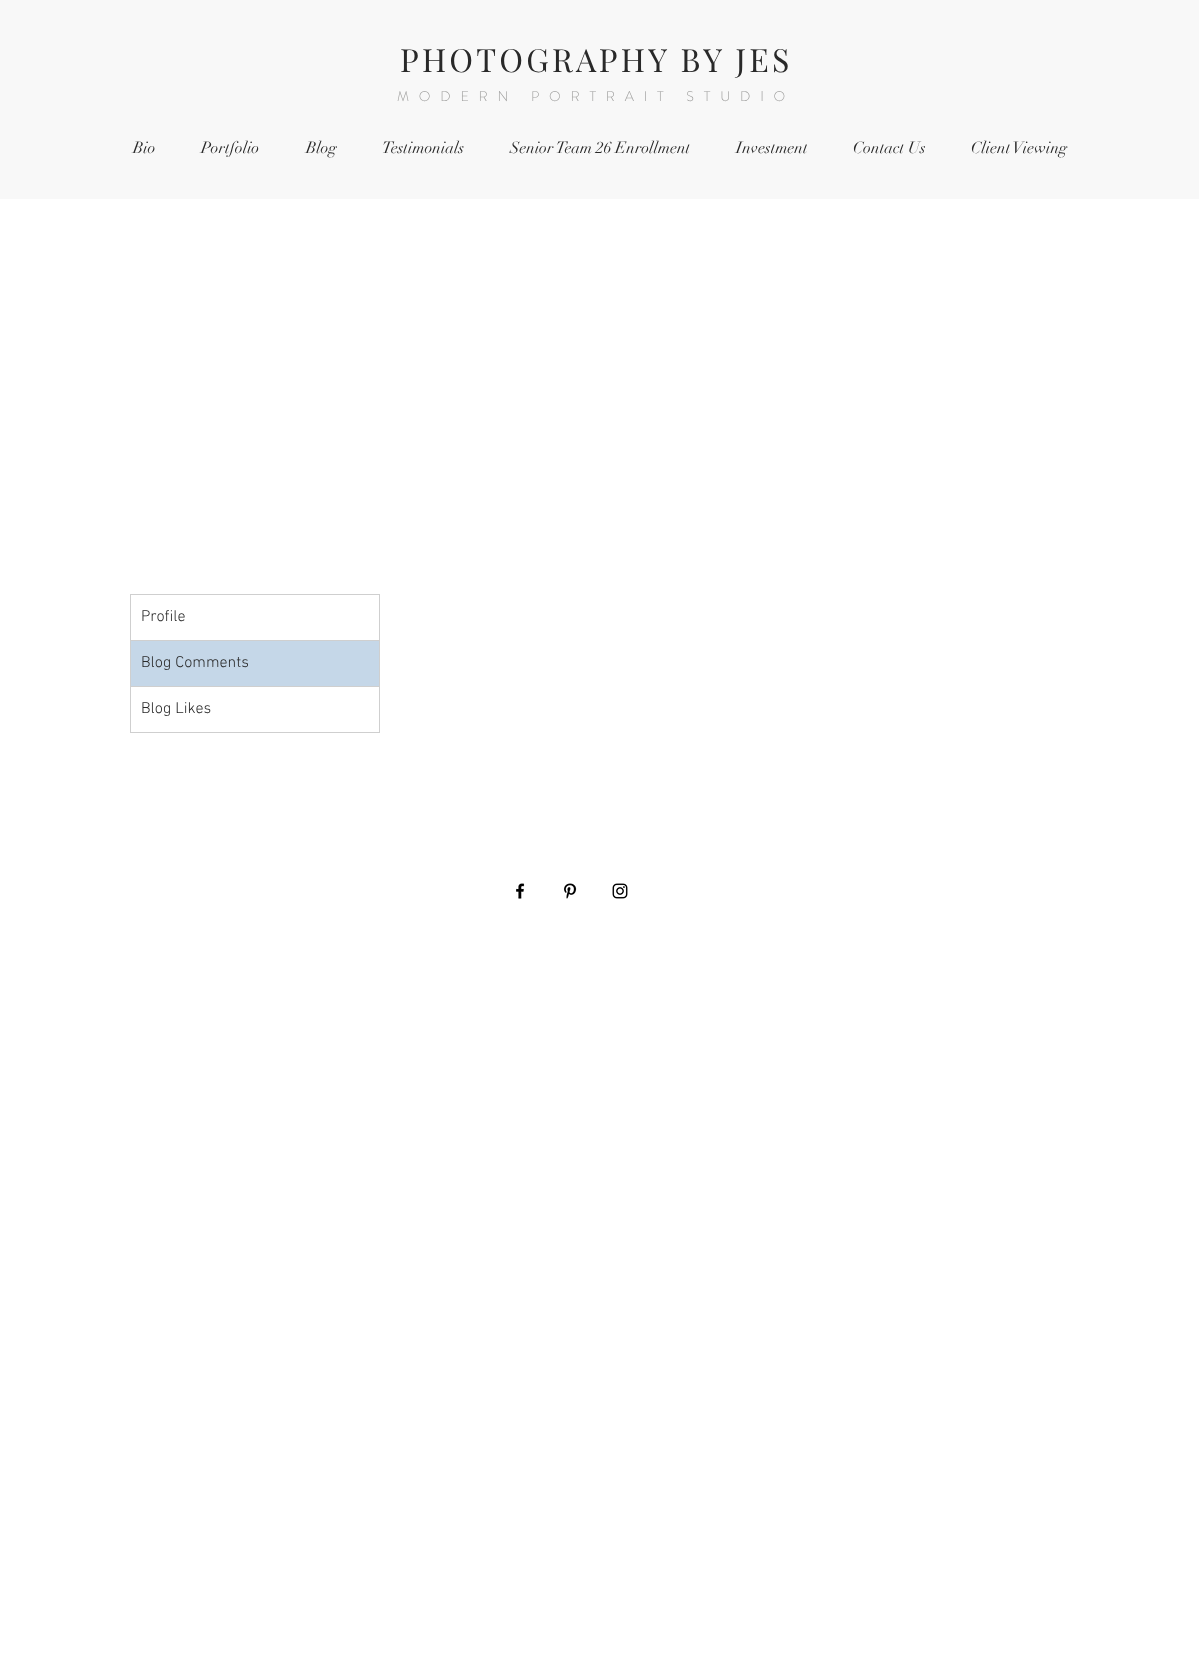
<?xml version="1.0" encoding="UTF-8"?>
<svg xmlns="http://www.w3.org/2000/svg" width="1199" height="1655">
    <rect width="100%" height="100%" fill="#FFFFFF"/>
    <rect x="0" y="0" width="1199" height="199" fill="#F8F8F8"/>
    <text x="400" y="72" font-family="Playfair Display" font-size="32" letter-spacing="3.25" fill="#292929">PHOTOGRAPHY BY JES</text>
    <text x="397" y="101" font-family="'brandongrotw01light'" font-size="14" font-weight="300" letter-spacing="9.8" fill="#A0A09F">MODERN PORTRAIT STUDIO</text>
    <text x="133" y="153" font-family="didot" font-size="16" fill="#292929">Bio</text>
    <text x="201" y="153" font-family="didot" font-size="16" fill="#292929">Portfolio</text>
    <text x="306" y="153" font-family="didot" font-size="16" fill="#292929">Blog</text>
    <text x="382" y="153" font-family="didot" font-size="16" fill="#292929">Testimonials</text>
    <text x="510" y="153" font-family="didot" font-size="16" fill="#292929">Senior Team 26 Enrollment</text>
    <text x="736" y="153" font-family="didot" font-size="16" fill="#292929">Investment</text>
    <text x="853" y="153" font-family="didot" font-size="16" fill="#292929">Contact Us</text>
    <text x="971" y="153" font-family="didot" font-size="16" fill="#292929">Client Viewing</text>
    <rect x="130.5" y="594.5" width="249" height="138" fill="none" stroke="#CFCFCF"/>
    <rect x="131" y="640" width="248" height="1" fill="#CFCFCF"/>
    <text x="141" y="621" font-family="'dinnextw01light'" font-size="16" font-weight="300" fill="#292929">Profile</text>
    <rect x="131" y="686" width="248" height="1" fill="#CFCFCF"/>
    <rect x="131" y="641" width="248" height="45" fill="#C5D7E8"/>
    <text x="141" y="667" font-family="'dinnextw01light'" font-size="16" font-weight="300" fill="#292929">Blog Comments</text>
    <text x="141" y="713" font-family="'dinnextw01light'" font-size="16" font-weight="300" fill="#292929">Blog Likes</text>
    <image x="516" y="883" width="9" height="16" href="img_01.png"/>
    <image x="563" y="883" width="14" height="16" href="img_02.png"/>
    <image x="612" y="883" width="16" height="16" href="img_03.png"/>
</svg>
